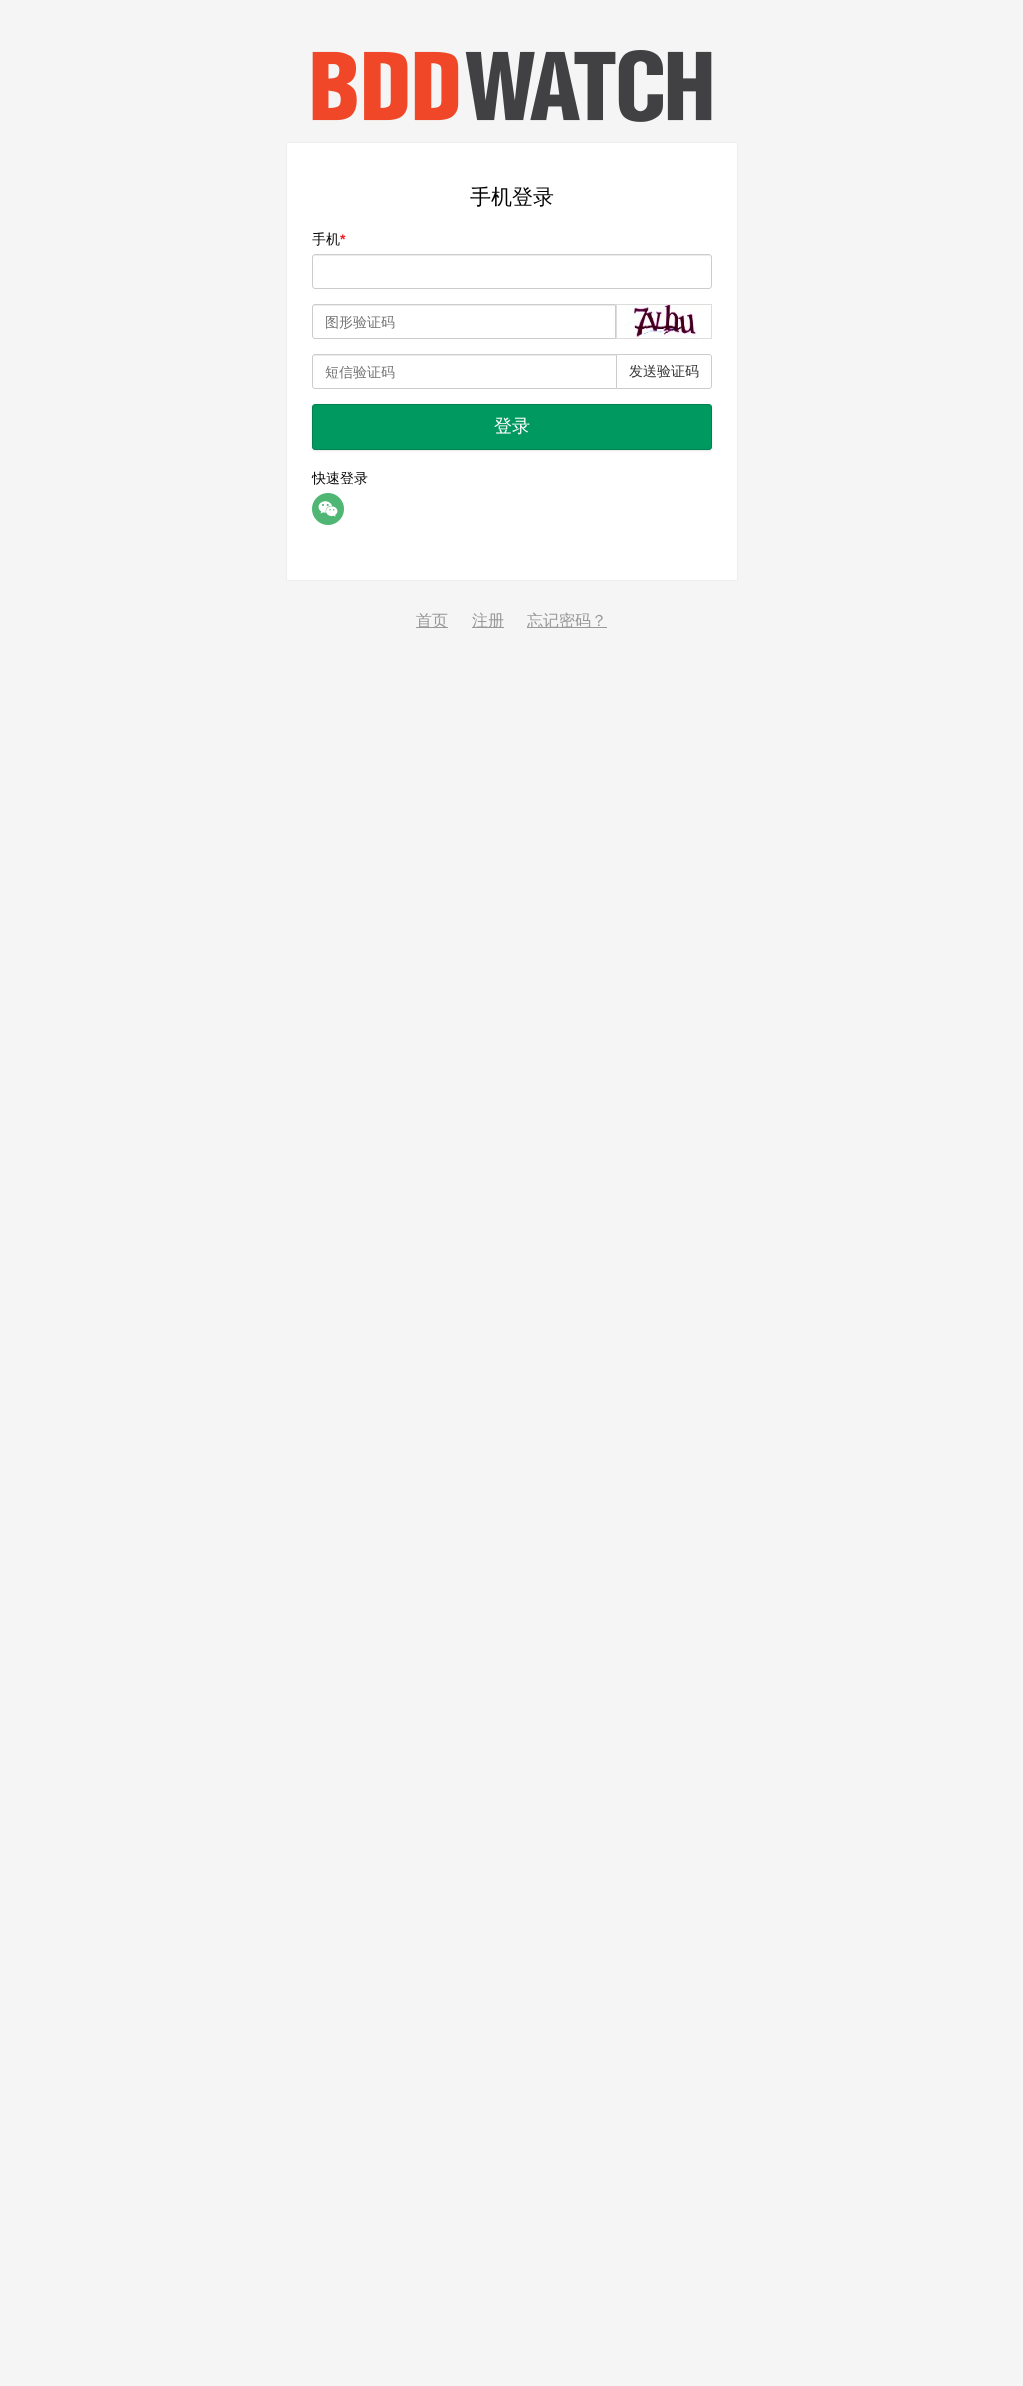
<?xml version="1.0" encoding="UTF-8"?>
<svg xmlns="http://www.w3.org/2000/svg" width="1023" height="2386">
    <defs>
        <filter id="blur1" x="-50%" y="-200%" width="200%" height="500%"><feGaussianBlur stdDeviation="1"/></filter>
    </defs>
    <rect width="100%" height="100%" fill="#F5F5F5"/>
    <image x="312" y="50" width="400" height="72" href="img_01.png"/>
    <rect x="286.5" y="142.5" width="451" height="438" fill="#FFFFFF" stroke="#EEEEEE"/>
    <text x="470" y="204" font-family="WenQuanYi Zen Hei" font-size="21" font-weight="500" fill="#000000">手机登录</text>
    <text x="312" y="244" font-family="WenQuanYi Zen Hei" font-size="14" font-weight="500" fill="#000000">手机</text>
    <text x="340" y="244" font-family="Liberation Sans" font-size="14" font-weight="700" fill="#ED1C24">*</text>
    <path d="M 315 256 H 709 C 710 256 711 257 711 258 V 256 L 709 255 H 315 C 313 255 313 257 313 258 C 313 257 314 256 315 256 Z" fill="#ECECEC"/>
    <rect x="312.5" y="254.5" width="399" height="34" rx="2.5" fill="none" stroke="#CCCCCC"/>
    <path d="M 315 306 H 615 V 305 H 314 L 313 308 C 313 307 314 306 315 306 Z" fill="#ECECEC"/>
    <path d="M 315 304.5 H 615.5 V 338.5 H 315 C 313.5 338.5 312.5 337.5 312.5 336 V 307 C 312.5 305.5 313.5 304.5 315 304.5 Z" fill="none" stroke="#CCCCCC"/>
    <text x="325" y="327" font-family="WenQuanYi Zen Hei" font-size="14" font-weight="500" fill="#757575">图形验证码</text>
    <image x="625" y="305" width="72" height="33" href="img_02.png"/>
    <rect x="616.5" y="304.5" width="95" height="34" fill="none" stroke="#DDDDDD"/>
    <path d="M 616.5 354.5 H 709 C 710.5 354.5 711.5 355.5 711.5 357 V 386 C 711.5 387.5 710.5 388.5 709 388.5 H 616.5 Z" fill="none" stroke="#CCCCCC"/>
    <path d="M 315 354 H 617 V 389 H 315 C 313.5 389 312 387.5 312 386 V 357 C 312 355.5 313.5 354 315 354 Z" fill="#FFFFFF"/>
    <path d="M 315 356 H 616 V 355 H 314 L 313 358 C 313 357 314 356 315 356 Z" fill="#ECECEC"/>
    <path d="M 315 354.5 H 616.5 V 388.5 H 315 C 313.5 388.5 312.5 387.5 312.5 386 V 357 C 312.5 355.5 313.5 354.5 315 354.5 Z" fill="none" stroke="#CCCCCC"/>
    <text x="325" y="377" font-family="WenQuanYi Zen Hei" font-size="14" font-weight="500" fill="#757575">短信验证码</text>
    <text x="629" y="376" font-family="WenQuanYi Zen Hei" font-size="14" font-weight="500" fill="#333333">发送验证码</text>
    <rect x="312" y="405" width="400" height="46" rx="3" fill="#000000" fill-opacity="0.1" filter="url(#blur1)"/>
    <rect x="312.5" y="404.5" width="399" height="45" rx="2.5" fill="#009A61" stroke="#008151"/>
    <text x="494" y="432" font-family="WenQuanYi Zen Hei" font-size="18" font-weight="500" fill="#FFFFFF">登录</text>
    <text x="312" y="483" font-family="WenQuanYi Zen Hei" font-size="14" font-weight="500" fill="#000000">快速登录</text>
    <image x="312" y="493" width="32" height="32" href="img_03.png"/>
    <rect x="416" y="627" width="32" height="1" fill="#999999"/>
    <text x="416" y="626" font-family="WenQuanYi Zen Hei" font-size="16" font-weight="500" fill="#999999">首页</text>
    <rect x="472" y="627" width="32" height="1" fill="#999999"/>
    <text x="472" y="626" font-family="WenQuanYi Zen Hei" font-size="16" font-weight="500" fill="#999999">注册</text>
    <rect x="527" y="627" width="80" height="1" fill="#999999"/>
    <text x="527" y="626" font-family="WenQuanYi Zen Hei" font-size="16" font-weight="500" fill="#999999">忘记密码？</text>
</svg>
